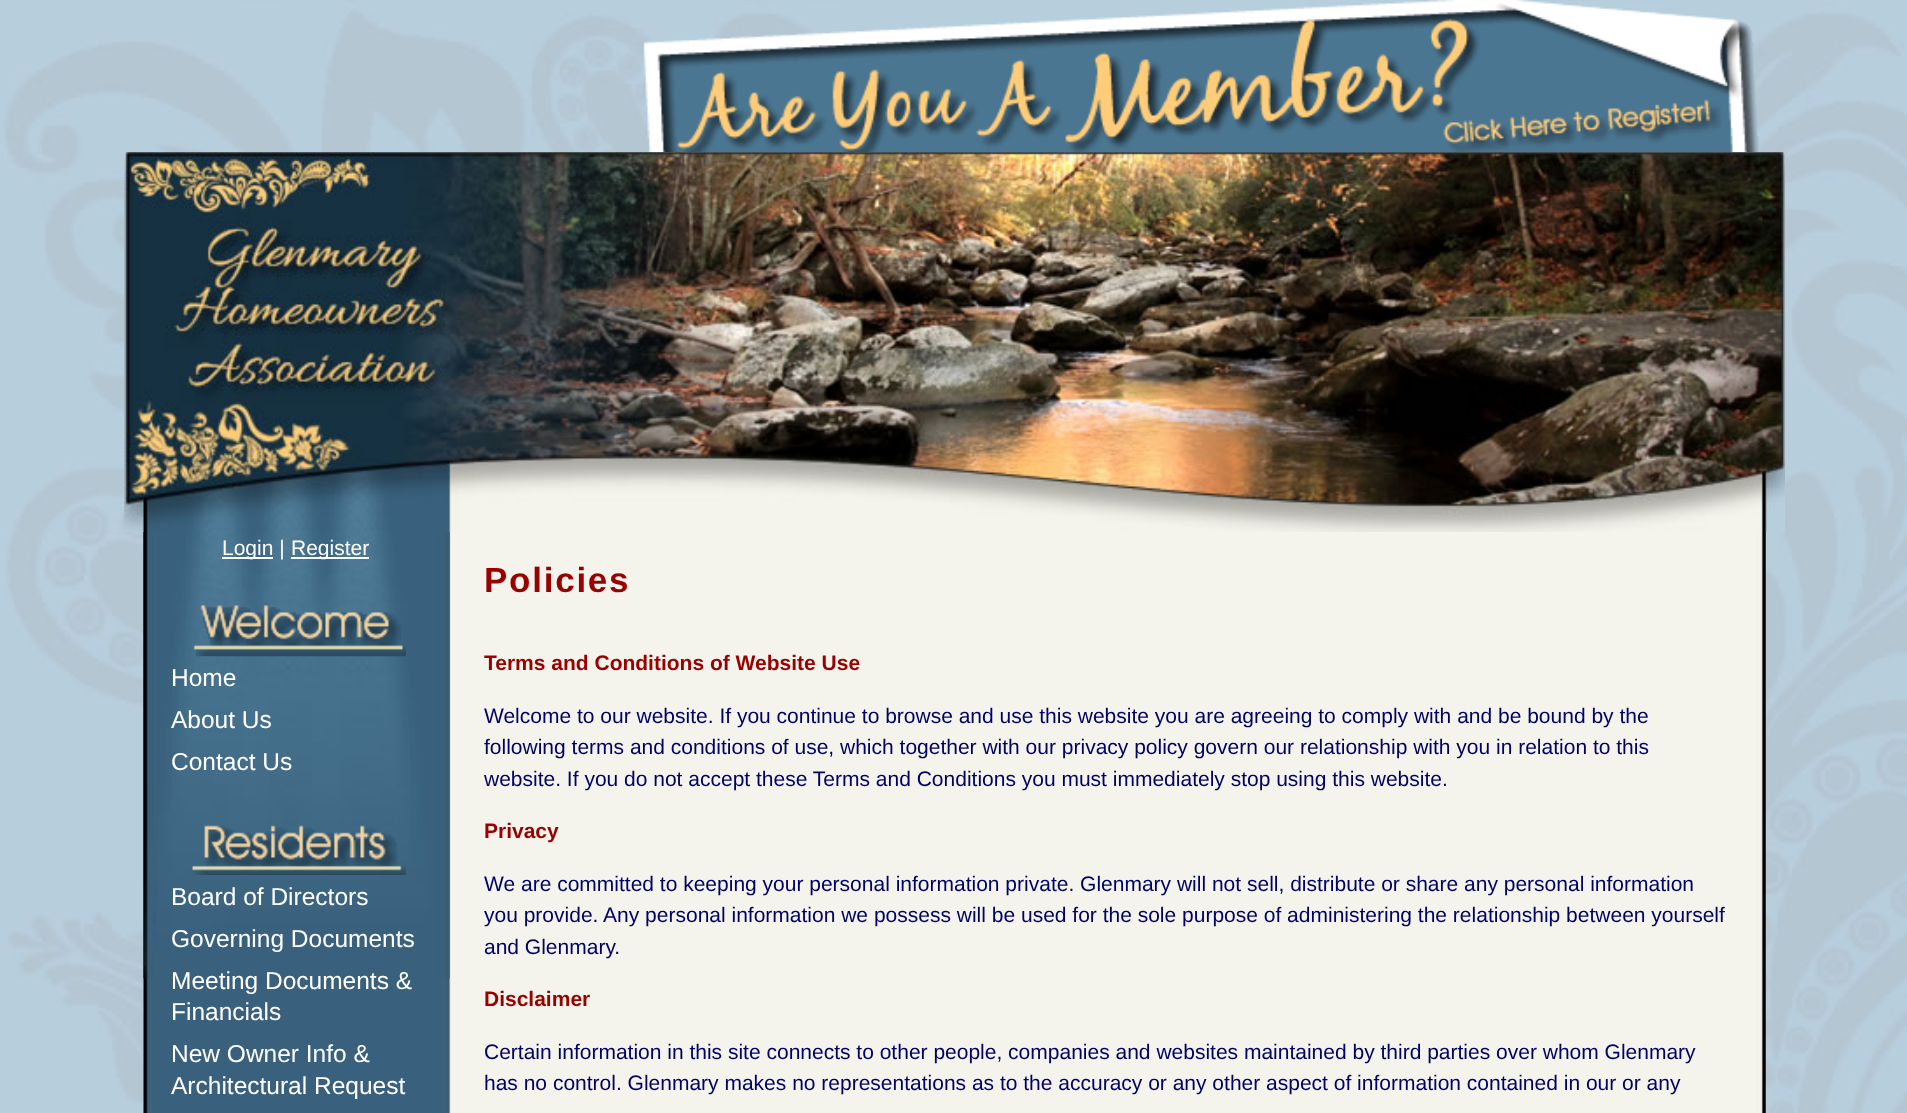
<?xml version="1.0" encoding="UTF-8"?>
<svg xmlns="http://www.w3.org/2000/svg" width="1907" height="1113">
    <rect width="100%" height="100%" fill="#B6CEDE"/>
    <image x="4" y="0" width="1903" height="1113" href="img_01.png"/>
    <image x="643" y="0" width="1116" height="153" href="img_02.png"/>
    <image x="124" y="152" width="1661" height="380" href="img_03.png"/>
    <image x="143" y="532" width="1623" height="581" href="img_04.png"/>
    <image x="143" y="532" width="307" height="447" href="img_05.png"/>
    <rect x="222" y="557" width="51" height="2" fill="#FFFFFF"/>
    <text x="222" y="555" font-family="Liberation Sans" font-size="21" fill="#FFFFFF">Login |</text>
    <rect x="291" y="557" width="78" height="2" fill="#FFFFFF"/>
    <text x="291" y="555" font-family="Liberation Sans" font-size="21" fill="#FFFFFF">Register</text>
    <image x="193" y="605" width="213" height="52" href="img_06.png"/>
    <text font-family="Liberation Sans" font-size="24.5" fill="#FFFFFF">
        <tspan x="171" y="686">Home</tspan>
        <tspan x="171" y="728">About Us</tspan>
        <tspan x="171" y="770">Contact Us</tspan>
    </text>
    <image x="192" y="825" width="214" height="50" href="img_07.png"/>
    <text font-family="Liberation Sans" font-size="24.5" fill="#FFFFFF">
        <tspan x="171" y="905">Board of Directors</tspan>
        <tspan x="171" y="947">Governing Documents</tspan>
        <tspan x="171" y="989">Meeting Documents &amp;</tspan>
        <tspan x="171" y="1020">Financials</tspan>
        <tspan x="171" y="1062">New Owner Info &amp;</tspan>
        <tspan x="171" y="1094">Architectural Request</tspan>
    </text>
    <text x="484" y="592" font-family="Liberation Sans" font-size="35" font-weight="700" letter-spacing="1.75" fill="#990000">Policies</text>
    <text x="484" y="670" font-family="Liberation Sans" font-size="21" font-weight="700" fill="#990000">Terms and Conditions of Website Use</text>
    <text font-family="Liberation Sans" font-size="21" fill="#000066">
        <tspan x="484" y="723">Welcome to our website. If you continue to browse and use this website you are agreeing to comply with and be bound by the</tspan>
        <tspan x="484" y="754">following terms and conditions of use, which together with our privacy policy govern our relationship with you in relation to this</tspan>
        <tspan x="484" y="786">website. If you do not accept these Terms and Conditions you must immediately stop using this website.</tspan>
    </text>
    <text x="484" y="838" font-family="Liberation Sans" font-size="21" font-weight="700" fill="#990000">Privacy</text>
    <text font-family="Liberation Sans" font-size="21" fill="#000066">
        <tspan x="484" y="891">We are committed to keeping your personal information private. Glenmary will not sell, distribute or share any personal information</tspan>
        <tspan x="484" y="922">you provide. Any personal information we possess will be used for the sole purpose of administering the relationship between yourself</tspan>
        <tspan x="484" y="954">and Glenmary.</tspan>
    </text>
    <text x="484" y="1006" font-family="Liberation Sans" font-size="21" font-weight="700" fill="#990000">Disclaimer</text>
    <text font-family="Liberation Sans" font-size="21" fill="#000066">
        <tspan x="484" y="1059">Certain information in this site connects to other people, companies and websites maintained by third parties over whom Glenmary</tspan>
        <tspan x="484" y="1090">has no control. Glenmary makes no representations as to the accuracy or any other aspect of information contained in our or any</tspan>
    </text>
</svg>
